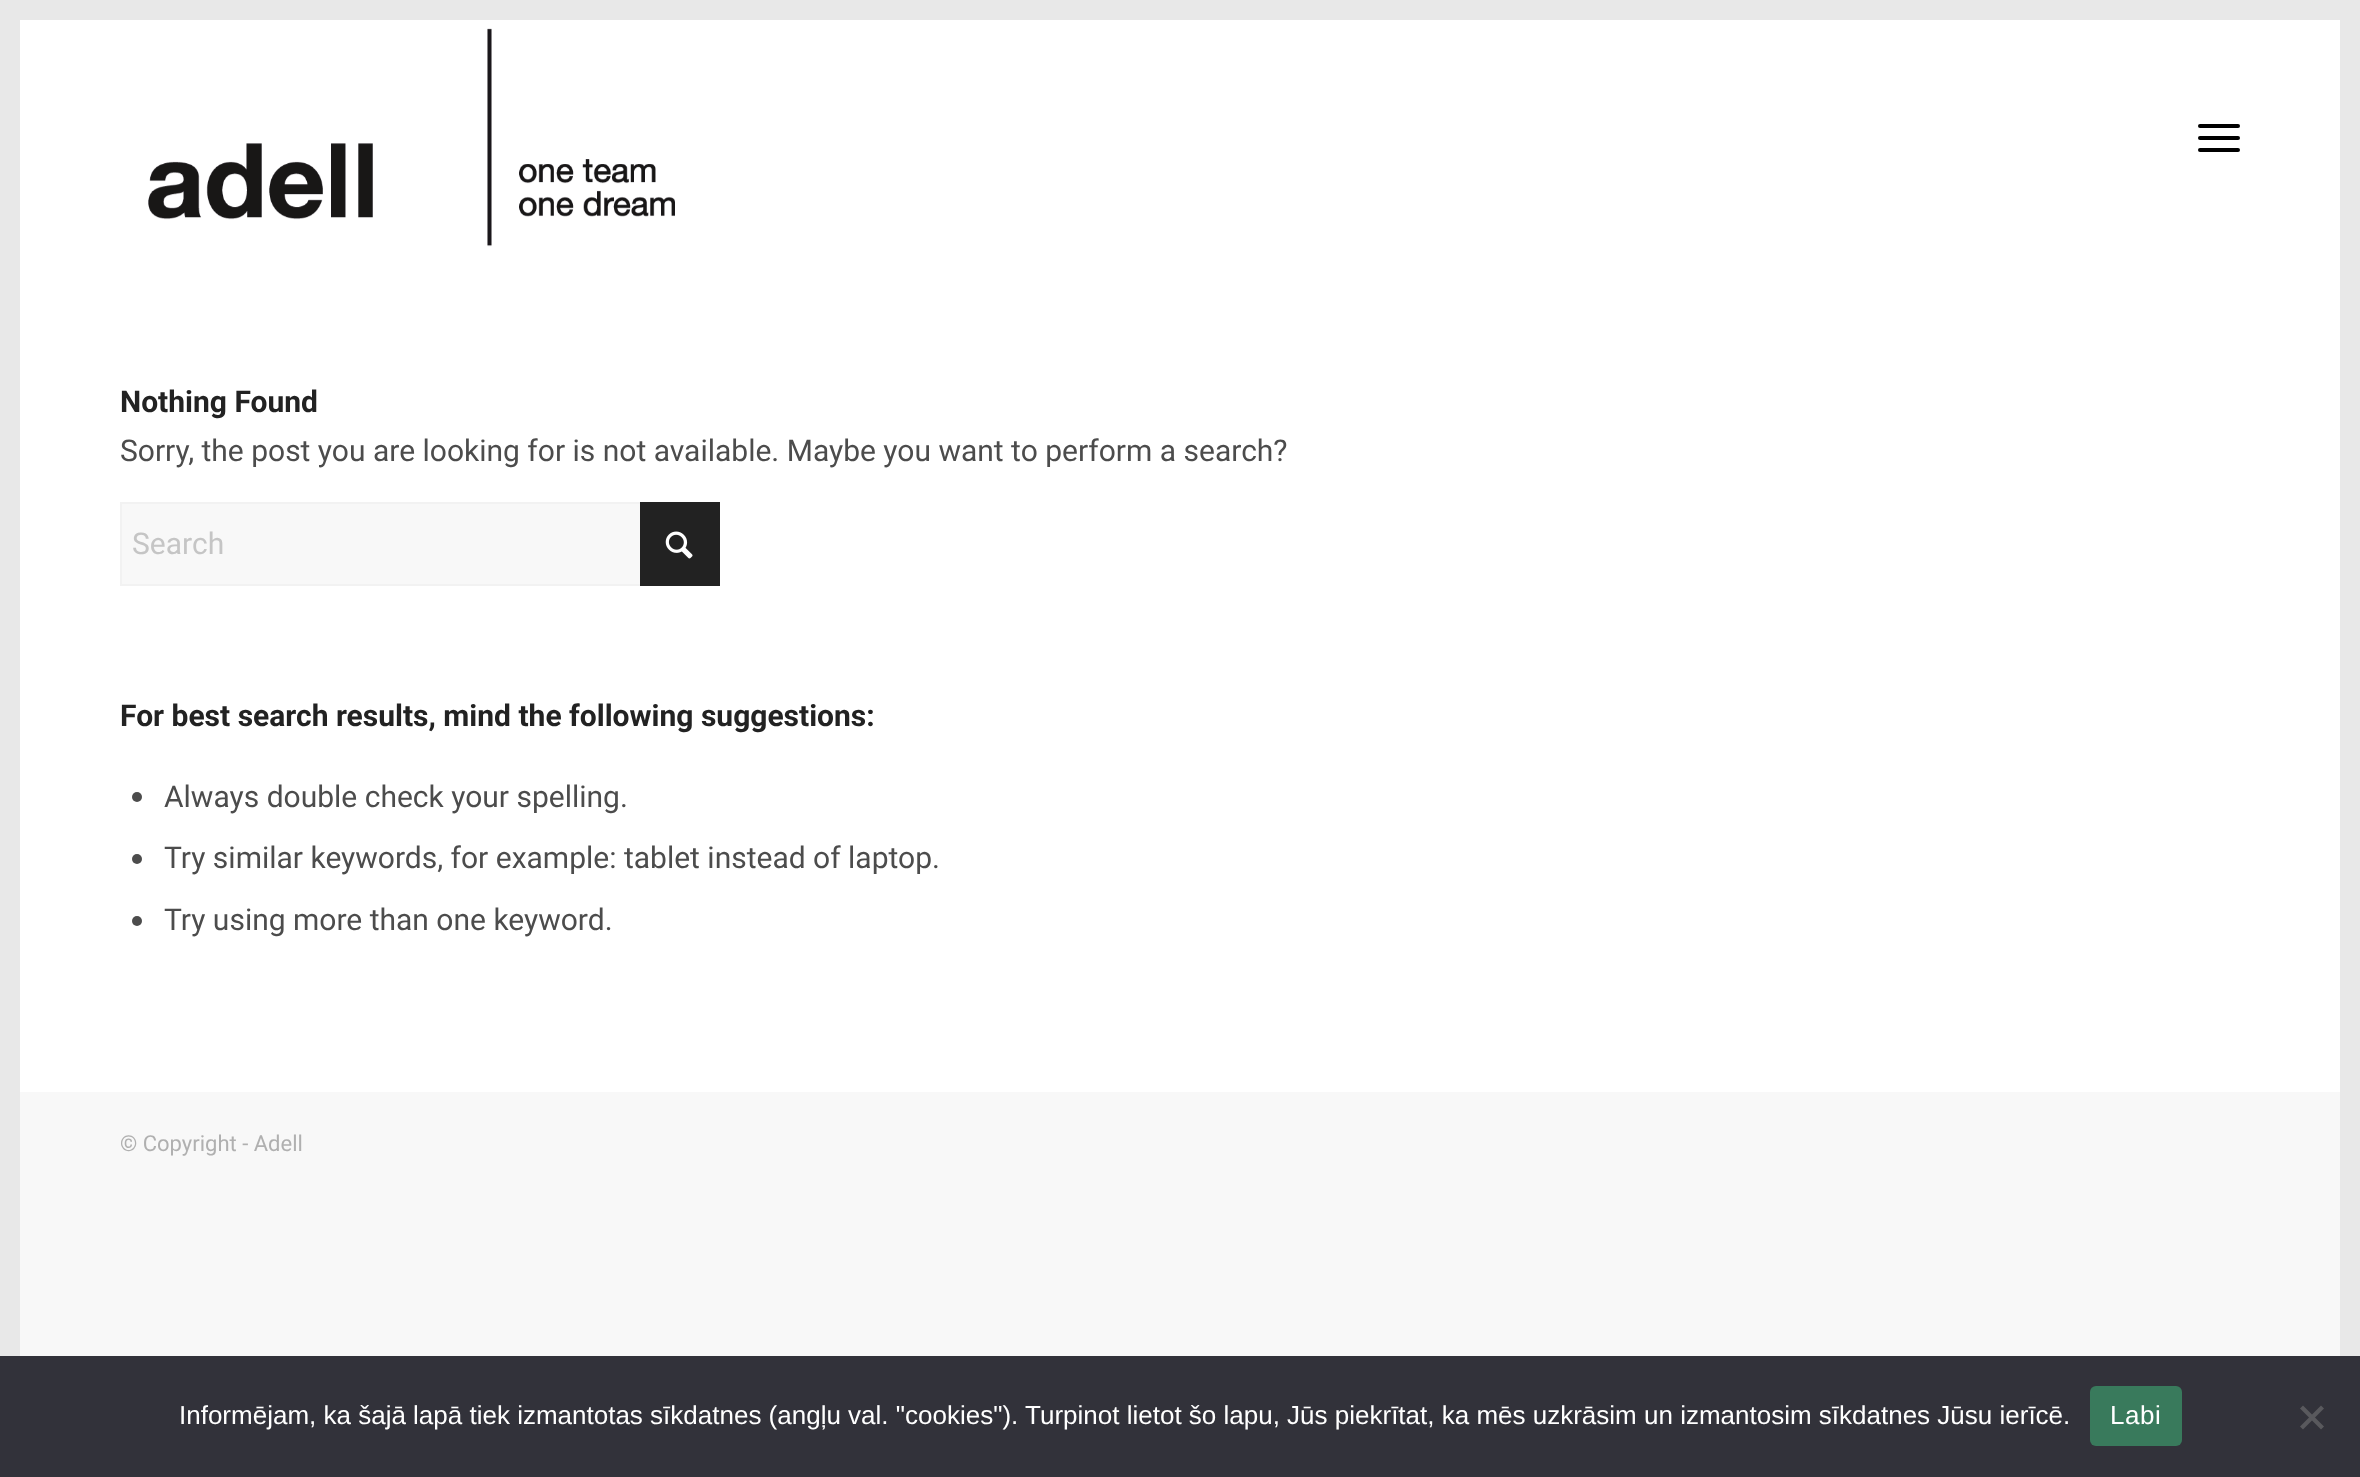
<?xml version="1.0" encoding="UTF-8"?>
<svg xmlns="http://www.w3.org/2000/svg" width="2360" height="1477">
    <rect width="100%" height="100%" fill="#F8F8F8"/>
    <rect x="0" y="0" width="20" height="1356" fill="#E8E8E8"/>
    <rect x="20" y="0" width="2320" height="20" fill="#E8E8E8"/>
    <rect x="2340" y="0" width="20" height="1356" fill="#E8E8E8"/>
    <rect x="20" y="20" width="2320" height="1072" fill="#FFFFFF"/>
    <image x="148" y="28" width="527" height="219" href="img_01.png"/>
    <rect x="2198" y="136" width="42" height="4" rx="2" fill="#000000"/>
    <rect x="2198" y="124" width="42" height="4" rx="2" fill="#000000"/>
    <rect x="2198" y="148" width="42" height="4" rx="2" fill="#000000"/>
    <text x="120" y="412" font-family="Roboto" font-size="30" font-weight="700" fill="#222222">Nothing Found</text>
    <text x="120" y="461" font-family="Roboto" font-size="30" fill="#4C4C4C">Sorry, the post you are looking for is not available. Maybe you want to perform a search?</text>
    <rect x="122" y="504" width="518" height="80" fill="#F8F8F8"/>
    <rect x="121" y="503" width="598" height="82" fill="none" stroke="#F2F2F2" stroke-width="2"/>
    <text x="132" y="554" font-family="Roboto" font-size="30" fill="#C5C5C5">Search</text>
    <rect x="640" y="502" width="80" height="84" fill="#222222"/>
    <image x="665" y="531" width="28" height="28" href="img_02.png"/>
    <text x="120" y="726" font-family="Roboto" font-size="30" font-weight="700" fill="#222222">For best search results, mind the following suggestions:</text>
    <circle cx="137" cy="797" r="5" fill="#4C4C4C"/>
    <text x="164" y="807" font-family="Roboto" font-size="30" fill="#4C4C4C">Always double check your spelling.</text>
    <circle cx="137" cy="859" r="5" fill="#4C4C4C"/>
    <text x="164" y="868" font-family="Roboto" font-size="30" fill="#4C4C4C">Try similar keywords, for example: tablet instead of laptop.</text>
    <circle cx="137" cy="921" r="5" fill="#4C4C4C"/>
    <text x="164" y="930" font-family="Roboto" font-size="30" fill="#4C4C4C">Try using more than one keyword.</text>
    <text x="120" y="1151" font-family="Roboto" font-size="22" fill="#B0B0B0">© Copyright - Adell</text>
    <rect x="0" y="1356" width="2360" height="121" fill="#32323A"/>
    <text x="179" y="1424" font-family="Liberation Sans" font-size="26" fill="#FFFFFF">Informējam, ka šajā lapā tiek izmantotas sīkdatnes (angļu val. "cookies"). Turpinot lietot šo lapu, Jūs piekrītat, ka mēs uzkrāsim un izmantosim sīkdatnes Jūsu ierīcē.</text>
    <rect x="2090" y="1386" width="92" height="60" rx="6" fill="#397A5C"/>
    <text x="2110" y="1424" font-family="Liberation Sans" font-size="26" letter-spacing="0.5" fill="#FFFFFF">Labi</text>
    <path d="M 2321 1405.5 L 2324 1408.5 L 2303 1429.5 L 2300 1426.5 Z" fill="#59595D"/>
    <path d="M 2300 1408.5 L 2303 1405.5 L 2324 1426.5 L 2321 1429.5 Z" fill="#59595D"/>
</svg>
